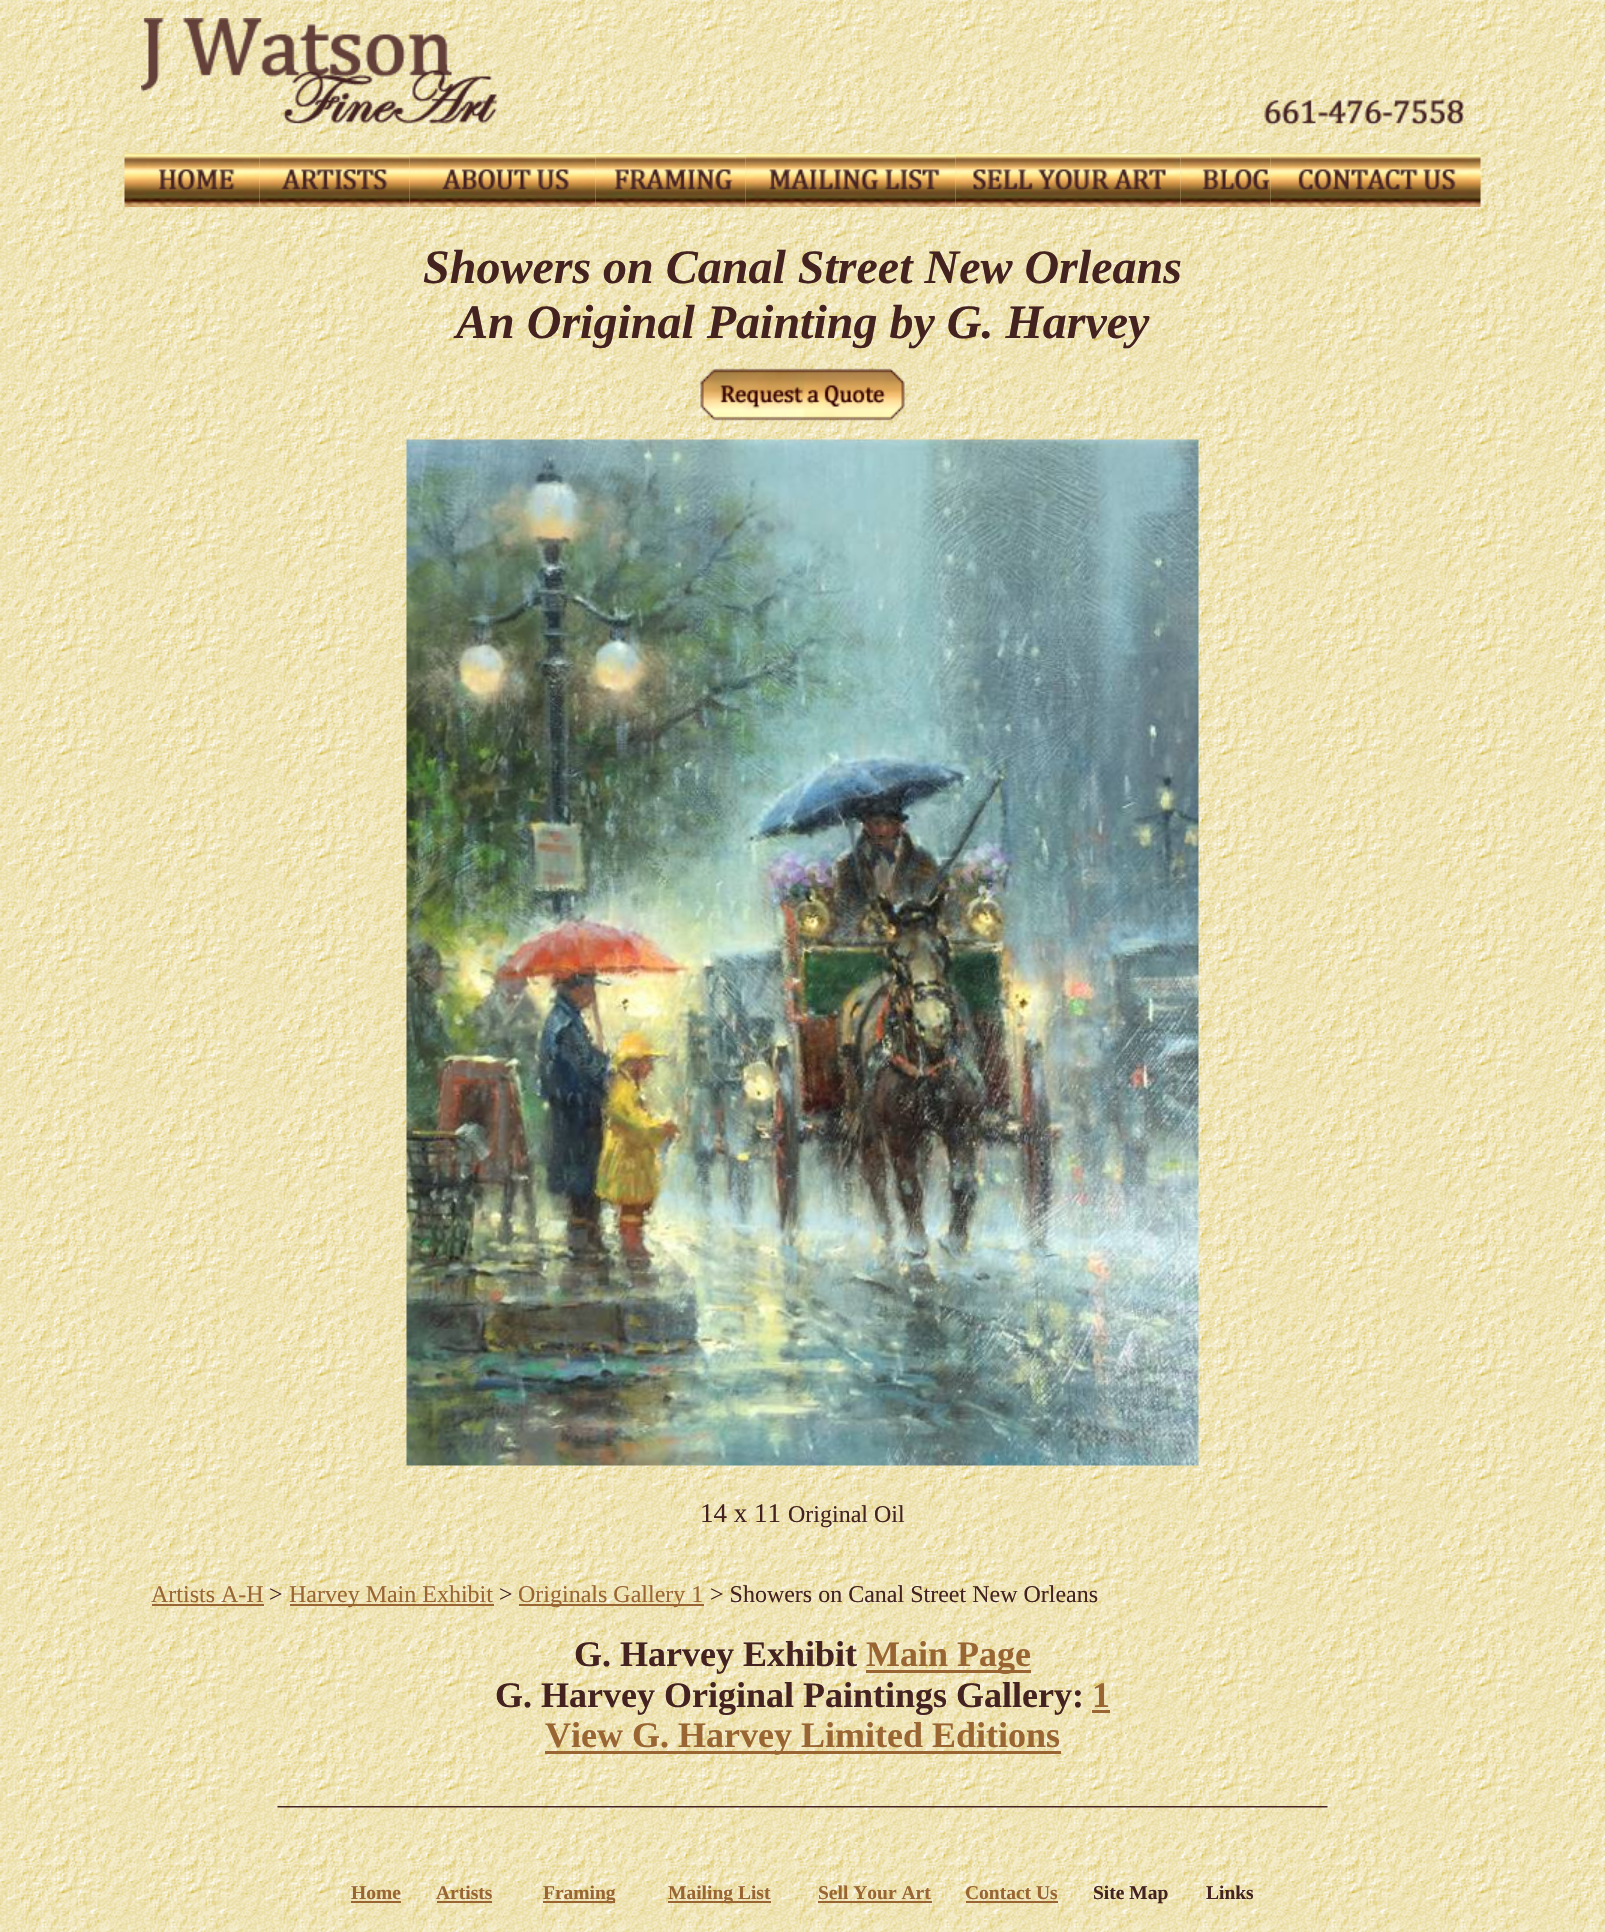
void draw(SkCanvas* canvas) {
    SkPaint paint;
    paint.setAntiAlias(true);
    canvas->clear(0xFFFFFFFF);
    canvas->drawImageRect(SkImages::DeferredFromEncodedData(SkData::MakeFromFileName("img1.png")), SkRect::MakeXYWH(0, 0, 1605, 1932), SkSamplingOptions());
    canvas->drawImageRect(SkImages::DeferredFromEncodedData(SkData::MakeFromFileName("img2.png")), SkRect::MakeXYWH(141, 18, 1323, 107), SkSamplingOptions());
    canvas->drawImageRect(SkImages::DeferredFromEncodedData(SkData::MakeFromFileName("img3.png")), SkRect::MakeXYWH(124, 153, 136, 54), SkSamplingOptions());
    canvas->drawImageRect(SkImages::DeferredFromEncodedData(SkData::MakeFromFileName("img4.png")), SkRect::MakeXYWH(259, 153, 151, 54), SkSamplingOptions());
    canvas->drawImageRect(SkImages::DeferredFromEncodedData(SkData::MakeFromFileName("img5.png")), SkRect::MakeXYWH(409, 153, 187, 54), SkSamplingOptions());
    canvas->drawImageRect(SkImages::DeferredFromEncodedData(SkData::MakeFromFileName("img6.png")), SkRect::MakeXYWH(595, 153, 151, 54), SkSamplingOptions());
    canvas->drawImageRect(SkImages::DeferredFromEncodedData(SkData::MakeFromFileName("img7.png")), SkRect::MakeXYWH(745, 153, 211, 54), SkSamplingOptions());
    canvas->drawImageRect(SkImages::DeferredFromEncodedData(SkData::MakeFromFileName("img8.png")), SkRect::MakeXYWH(955, 153, 226, 54), SkSamplingOptions());
    canvas->drawImageRect(SkImages::DeferredFromEncodedData(SkData::MakeFromFileName("img9.png")), SkRect::MakeXYWH(1180, 153, 91, 54), SkSamplingOptions());
    canvas->drawImageRect(SkImages::DeferredFromEncodedData(SkData::MakeFromFileName("img10.png")), SkRect::MakeXYWH(1270, 153, 211, 54), SkSamplingOptions());
    SkFont font1(fontMgr->matchFamilyStyle("Liberation Serif", SkFontStyle::BoldItalic()), 48);
    font1.setSubpixel(true);
    paint.setColor(0xFF442220);
    canvas->drawString("Showers on Canal Street New Orleans", 423, 283, font1, paint);
    canvas->drawString("An Original Painting by G. Harvey", 456, 338, font1, paint);
    canvas->drawImageRect(SkImages::DeferredFromEncodedData(SkData::MakeFromFileName("img11.png")), SkRect::MakeXYWH(700, 368, 205, 53), SkSamplingOptions());
    canvas->drawImageRect(SkImages::DeferredFromEncodedData(SkData::MakeFromFileName("img12.png")), SkRect::MakeXYWH(406, 439, 793, 1027), SkSamplingOptions());
    SkFont font2(fontMgr->matchFamilyStyle("Liberation Serif", SkFontStyle::Normal()), 27);
    font2.setSubpixel(true);
    canvas->drawString("14 x 11", 700, 1522, font2, paint);
    SkFont font3(fontMgr->matchFamilyStyle("Liberation Serif", SkFontStyle::Normal()), 24);
    font3.setSubpixel(true);
    canvas->drawString("Original Oil", 788, 1522, font3, paint);
    paint.setColor(0xFF996633);
    canvas->drawString("Artists A-H", 151, 1602, font3, paint);
    canvas->drawRect(SkRect::MakeXYWH(152, 1604, 112, 2), paint);
    paint.setColor(0xFF442220);
    canvas->drawString(">", 269, 1602, font3, paint);
    paint.setColor(0xFF996633);
    canvas->drawRect(SkRect::MakeXYWH(290, 1604, 204, 2), paint);
    canvas->drawString("Harvey Main Exhibit", 289, 1602, font3, paint);
    paint.setColor(0xFF442220);
    canvas->drawString(">", 499, 1602, font3, paint);
    paint.setColor(0xFF996633);
    canvas->drawRect(SkRect::MakeXYWH(519, 1604, 185, 2), paint);
    canvas->drawString("Originals Gallery 1", 518, 1602, font3, paint);
    paint.setColor(0xFF442220);
    canvas->drawString("> Showers on Canal Street New Orleans", 710, 1602, font3, paint);
    SkFont font4(fontMgr->matchFamilyStyle("Liberation Serif", SkFontStyle::Bold()), 36);
    font4.setSubpixel(true);
    canvas->drawString("G. Harvey Exhibit", 574, 1666, font4, paint);
    paint.setColor(0xFF996633);
    canvas->drawRect(SkRect::MakeXYWH(866, 1670, 165, 3), paint);
    canvas->drawString("Main Page", 866, 1666, font4, paint);
    paint.setColor(0xFF442220);
    canvas->drawString("G. Harvey Original Paintings Gallery:", 495, 1707, font4, paint);
    paint.setColor(0xFF996633);
    canvas->drawString("1", 1092, 1707, font4, paint);
    canvas->drawRect(SkRect::MakeXYWH(1092, 1710, 18, 3), paint);
    canvas->drawRect(SkRect::MakeXYWH(545, 1751, 516, 3), paint);
    canvas->drawString("View G. Harvey Limited Editions", 545, 1747, font4, paint);
    canvas->drawImageRect(SkImages::DeferredFromEncodedData(SkData::MakeFromFileName("img13.png")), SkRect::MakeXYWH(277, 1806, 1051, 2), SkSamplingOptions());
    SkFont font5(fontMgr->matchFamilyStyle("Liberation Serif", SkFontStyle::Bold()), 19.5f);
    font5.setSubpixel(true);
    canvas->drawString("Home", 351, 1899, font5, paint);
    canvas->drawRect(SkRect::MakeXYWH(351, 1901, 50, 2), paint);
    canvas->drawString("Artists", 436, 1899, font5, paint);
    canvas->drawRect(SkRect::MakeXYWH(437, 1901, 55, 2), paint);
    canvas->drawRect(SkRect::MakeXYWH(543, 1901, 72, 2), paint);
    canvas->drawString("Framing", 543, 1899, font5, paint);
    canvas->drawRect(SkRect::MakeXYWH(668, 1901, 103, 2), paint);
    canvas->drawString("Mailing List", 668, 1899, font5, paint);
    canvas->drawString("Sell Your Art", 818, 1899, font5, paint);
    canvas->drawRect(SkRect::MakeXYWH(818, 1901, 114, 2), paint);
    canvas->drawString("Contact Us", 965, 1899, font5, paint);
    canvas->drawRect(SkRect::MakeXYWH(966, 1901, 92, 2), paint);
    paint.setColor(0xFF442220);
    canvas->drawString("Site Map", 1093, 1899, font5, paint);
    canvas->drawString("Links", 1206, 1899, font5, paint);
}
